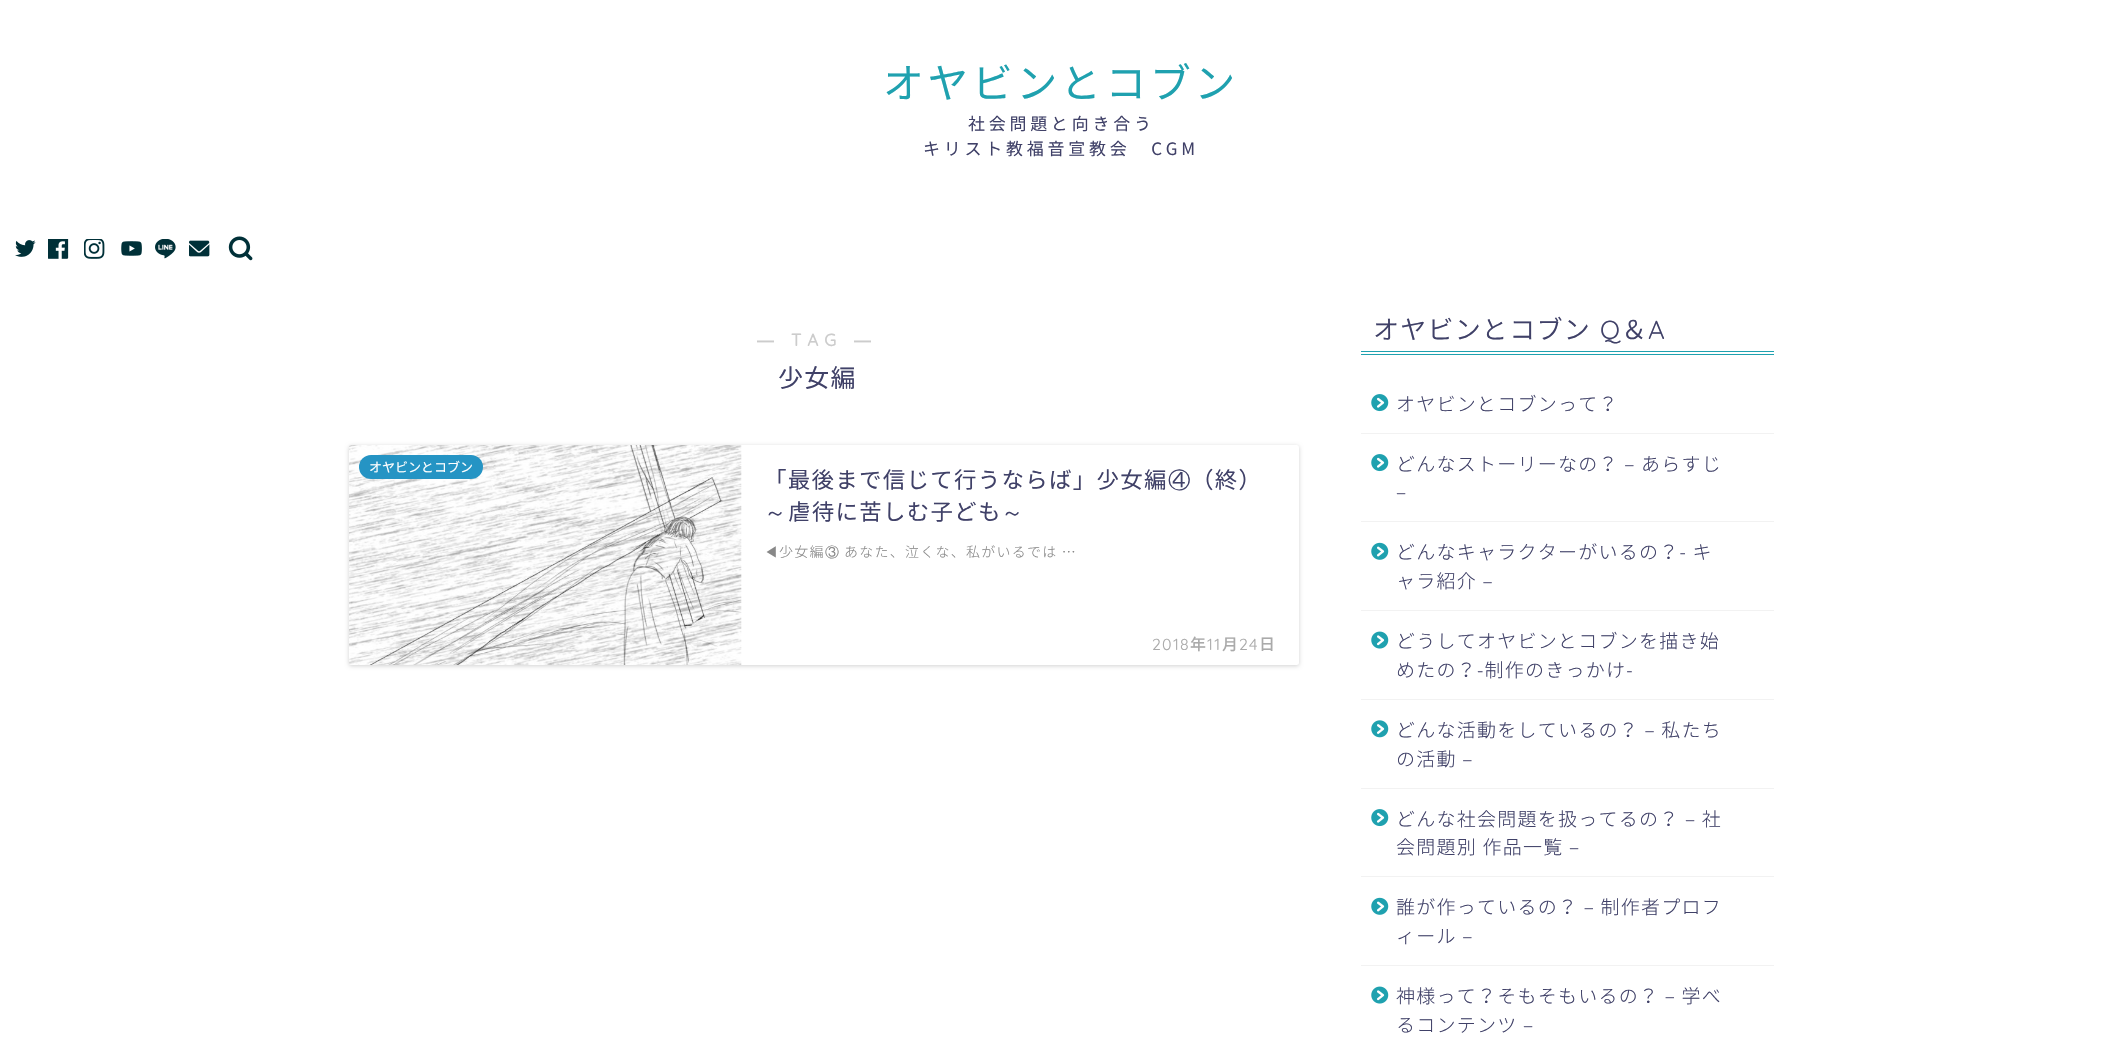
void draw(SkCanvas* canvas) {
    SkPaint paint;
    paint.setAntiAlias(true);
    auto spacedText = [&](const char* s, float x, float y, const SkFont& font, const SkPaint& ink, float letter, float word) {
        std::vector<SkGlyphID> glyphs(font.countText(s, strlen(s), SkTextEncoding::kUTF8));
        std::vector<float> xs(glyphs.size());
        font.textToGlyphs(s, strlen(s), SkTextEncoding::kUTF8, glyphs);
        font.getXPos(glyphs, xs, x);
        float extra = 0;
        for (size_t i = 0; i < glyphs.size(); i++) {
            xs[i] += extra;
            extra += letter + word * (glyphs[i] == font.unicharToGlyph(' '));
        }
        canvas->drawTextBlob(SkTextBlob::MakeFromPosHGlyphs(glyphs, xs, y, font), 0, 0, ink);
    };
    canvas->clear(0xFFFFFFFF);
    SkFont font1(fontMgr->matchFamilyStyle("Noto Sans JP", SkFontStyle::Normal()), 40.75f);
    font1.setSubpixel(true);
    paint.setColor(0xFF1FA1AF);
    spacedText("オヤビンとコブン", 883, 98, font1, paint, 3.75f, 0);
    SkFont font2(fontMgr->matchFamilyStyle("Noto Sans JP", SkFontStyle::Normal()), 17);
    font2.setSubpixel(true);
    paint.setColor(0xFF404168);
    spacedText("社会問題と向き合う", 968, 130, font2, paint, 3.75f, 0);
    spacedText("キリスト教福音宣教会　CGM", 923, 155, font2, paint, 3.75f, 0);
    canvas->drawImageRect(SkImages::DeferredFromEncodedData(SkData::MakeFromFileName("img1.png")), SkRect::MakeXYWH(15, 240, 21, 17), SkSamplingOptions());
    canvas->drawImageRect(SkImages::DeferredFromEncodedData(SkData::MakeFromFileName("img2.png")), SkRect::MakeXYWH(48, 239, 21, 20), SkSamplingOptions());
    canvas->drawImageRect(SkImages::DeferredFromEncodedData(SkData::MakeFromFileName("img3.png")), SkRect::MakeXYWH(84, 239, 21, 20), SkSamplingOptions());
    canvas->drawImageRect(SkImages::DeferredFromEncodedData(SkData::MakeFromFileName("img4.png")), SkRect::MakeXYWH(121, 241, 21, 15), SkSamplingOptions());
    canvas->drawImageRect(SkImages::DeferredFromEncodedData(SkData::MakeFromFileName("img5.png")), SkRect::MakeXYWH(155, 239, 21, 20), SkSamplingOptions());
    canvas->drawImageRect(SkImages::DeferredFromEncodedData(SkData::MakeFromFileName("img6.png")), SkRect::MakeXYWH(189, 240, 21, 17), SkSamplingOptions());
    canvas->drawImageRect(SkImages::DeferredFromEncodedData(SkData::MakeFromFileName("img7.png")), SkRect::MakeXYWH(228, 236, 25, 25), SkSamplingOptions());
    SkFont font3(fontMgr->matchFamilyStyle("Liberation Sans", SkFontStyle::Bold()), 17);
    font3.setSubpixel(true);
    paint.setColor(0xFFCCCCCC);
    spacedText("―", 757, 346, font3, paint, 6, 0);
    SkFont font4(fontMgr->matchFamilyStyle("Quicksand", SkFontStyle::Bold()), 17);
    font4.setSubpixel(true);
    spacedText("TAG", 791, 346, font4, paint, 6, 0);
    spacedText("―", 854, 346, font3, paint, 6, 0);
    SkFont font5(fontMgr->matchFamilyStyle("Noto Sans JP", SkFontStyle::Normal()), 25);
    font5.setSubpixel(true);
    paint.setColor(0xFF404168);
    spacedText("少女編", 778, 387, font5, paint, 1.25f, 0);
    paint.setColor(0x2E000000);
    paint.setMaskFilter(SkMaskFilter::MakeBlur(kNormal_SkBlurStyle, 2));
    canvas->drawRoundRect(SkRect::MakeXYWH(349, 446, 950, 220), 2.5f, 2.5f, paint);
    paint.setMaskFilter(nullptr);
    paint.setColor(0xFFFFFFFF);
    canvas->drawRoundRect(SkRect::MakeXYWH(349, 445, 950, 220), 2.5f, 2.5f, paint);
    canvas->drawImageRect(SkImages::DeferredFromEncodedData(SkData::MakeFromFileName("img8.png")), SkRect::MakeXYWH(349, 445, 393, 220), SkSamplingOptions());
    paint.setColor(0xFF2594C4);
    canvas->drawRoundRect(SkRect::MakeXYWH(359, 455, 124, 24), 12, 12, paint);
    SkFont font6(fontMgr->matchFamilyStyle("Noto Sans JP", SkFontStyle::Normal()), 13);
    font6.setSubpixel(true);
    paint.setColor(0xFFFFFFFF);
    canvas->drawString("オヤビンとコブン", 369, 472, font6, paint);
    SkFont font7(fontMgr->matchFamilyStyle("Noto Sans JP", SkFontStyle::Normal()), 22.5f);
    font7.setSubpixel(true);
    paint.setColor(0xFF404168);
    spacedText("「最後まで信じて行うならば」少女編", 764, 488, font7, paint, 1.25f, 0);
    SkFont font8(fontMgr->matchFamilyStyle("WenQuanYi Zen Hei", SkFontStyle(500, SkFontStyle::kNormal_Width, SkFontStyle::kUpright_Slant)), 22.5f);
    font8.setSubpixel(true);
    spacedText("④", 1168, 488, font8, paint, 1.25f, 0);
    spacedText("（終）", 1191, 488, font7, paint, 1.25f, 0);
    spacedText("～", 764, 520, font8, paint, 1.25f, 0);
    spacedText("虐待に苦しむ子ども", 788, 520, font7, paint, 1.25f, 0);
    spacedText("～", 1001, 520, font8, paint, 1.25f, 0);
    SkFont font9(fontMgr->matchFamilyStyle("WenQuanYi Zen Hei", SkFontStyle(500, SkFontStyle::kNormal_Width, SkFontStyle::kUpright_Slant)), 14);
    font9.setSubpixel(true);
    paint.setColor(0xFF888888);
    spacedText("◀", 764, 557, font9, paint, 1.25f, 0);
    SkFont font10(fontMgr->matchFamilyStyle("Noto Sans JP", SkFontStyle(300, SkFontStyle::kNormal_Width, SkFontStyle::kUpright_Slant)), 14);
    font10.setSubpixel(true);
    spacedText("少女編", 779, 557, font10, paint, 1.25f, 0);
    spacedText("③", 825, 557, font9, paint, 1.25f, 0);
    spacedText("あなた、泣くな、私がいるでは …", 844, 557, font10, paint, 1.25f, 0);
    SkFont font11(fontMgr->matchFamilyStyle("Quicksand", SkFontStyle(300, SkFontStyle::kNormal_Width, SkFontStyle::kUpright_Slant)), 16);
    font11.setSubpixel(true);
    paint.setColor(0xFFAAAAAA);
    spacedText("2018", 1152, 650, font11, paint, 1.25f, 0);
    SkFont font12(fontMgr->matchFamilyStyle("Noto Sans JP", SkFontStyle(500, SkFontStyle::kNormal_Width, SkFontStyle::kUpright_Slant)), 16);
    font12.setSubpixel(true);
    spacedText("年", 1190, 650, font12, paint, 1.25f, 0);
    spacedText("11", 1207, 650, font11, paint, 1.25f, 0);
    spacedText("月", 1222, 650, font12, paint, 1.25f, 0);
    spacedText("24", 1239, 650, font11, paint, 1.25f, 0);
    spacedText("日", 1259, 650, font12, paint, 1.25f, 0);
    paint.setColor(0xFF1FA1AF);
    canvas->drawRect(SkRect::MakeXYWH(1361, 351, 413, 1), paint);
    canvas->drawRect(SkRect::MakeXYWH(1361, 354, 413, 1), paint);
    SkFont font13(fontMgr->matchFamilyStyle("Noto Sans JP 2", SkFontStyle(300, SkFontStyle::kNormal_Width, SkFontStyle::kUpright_Slant)), 26);
    font13.setSubpixel(true);
    paint.setColor(0xFF404168);
    spacedText("オヤビンとコブン", 1373, 339, font13, paint, 1.25f, 0);
    SkFont font14(fontMgr->matchFamilyStyle("Quicksand", SkFontStyle(300, SkFontStyle::kNormal_Width, SkFontStyle::kUpright_Slant)), 26);
    font14.setSubpixel(true);
    spacedText("Q", 1600, 339, font14, paint, 1.25f, 0);
    spacedText("＆", 1621, 339, font13, paint, 1.25f, 0);
    spacedText("A", 1648, 339, font14, paint, 1.25f, 0);
    paint.setColor(0xFFF2F2F2);
    canvas->drawRect(SkRect::MakeXYWH(1361, 433, 413, 1), paint);
    canvas->drawImageRect(SkImages::DeferredFromEncodedData(SkData::MakeFromFileName("img9.png")), SkRect::MakeXYWH(1371, 394, 18, 18), SkSamplingOptions());
    SkFont font15(fontMgr->matchFamilyStyle("Noto Sans JP", SkFontStyle(300, SkFontStyle::kNormal_Width, SkFontStyle::kUpright_Slant)), 19);
    font15.setSubpixel(true);
    paint.setColor(0xFF404168);
    spacedText("オヤビンとコブンって？", 1396, 411, font15, paint, 1.25f, 0);
    paint.setColor(0xFFF2F2F2);
    canvas->drawRect(SkRect::MakeXYWH(1361, 521, 413, 1), paint);
    canvas->drawImageRect(SkImages::DeferredFromEncodedData(SkData::MakeFromFileName("img9.png")), SkRect::MakeXYWH(1371, 454, 18, 18), SkSamplingOptions());
    paint.setColor(0xFF404168);
    spacedText("どんなストーリーなの？ – あらすじ", 1396, 471, font15, paint, 1.25f, 0);
    spacedText("–", 1396, 499, font15, paint, 1.25f, 0);
    paint.setColor(0xFFF2F2F2);
    canvas->drawRect(SkRect::MakeXYWH(1361, 610, 413, 1), paint);
    canvas->drawImageRect(SkImages::DeferredFromEncodedData(SkData::MakeFromFileName("img10.png")), SkRect::MakeXYWH(1371, 542, 18, 18), SkSamplingOptions());
    paint.setColor(0xFF404168);
    spacedText("どんなキャラクターがいるの？- キ", 1396, 559, font15, paint, 1.25f, 0);
    spacedText("ャラ紹介 –", 1396, 588, font15, paint, 1.25f, 0);
    paint.setColor(0xFFF2F2F2);
    canvas->drawRect(SkRect::MakeXYWH(1361, 699, 413, 1), paint);
    canvas->drawImageRect(SkImages::DeferredFromEncodedData(SkData::MakeFromFileName("img11.png")), SkRect::MakeXYWH(1371, 631, 18, 18), SkSamplingOptions());
    paint.setColor(0xFF404168);
    spacedText("どうしてオヤビンとコブンを描き始", 1396, 648, font15, paint, 1.25f, 0);
    spacedText("めたの？-制作のきっかけ-", 1396, 677, font15, paint, 1.25f, 0);
    paint.setColor(0xFFF2F2F2);
    canvas->drawRect(SkRect::MakeXYWH(1361, 788, 413, 1), paint);
    canvas->drawImageRect(SkImages::DeferredFromEncodedData(SkData::MakeFromFileName("img12.png")), SkRect::MakeXYWH(1371, 720, 18, 18), SkSamplingOptions());
    paint.setColor(0xFF404168);
    spacedText("どんな活動をしているの？ – 私たち", 1396, 737, font15, paint, 1.25f, 0);
    spacedText("の活動 –", 1396, 766, font15, paint, 1.25f, 0);
    paint.setColor(0xFFF2F2F2);
    canvas->drawRect(SkRect::MakeXYWH(1361, 876, 413, 1), paint);
    canvas->drawImageRect(SkImages::DeferredFromEncodedData(SkData::MakeFromFileName("img9.png")), SkRect::MakeXYWH(1371, 809, 18, 18), SkSamplingOptions());
    paint.setColor(0xFF404168);
    spacedText("どんな社会問題を扱ってるの？ – 社", 1396, 826, font15, paint, 1.25f, 0);
    spacedText("会問題別 作品一覧 –", 1396, 854, font15, paint, 1.25f, 0);
    paint.setColor(0xFFF2F2F2);
    canvas->drawRect(SkRect::MakeXYWH(1361, 965, 413, 1), paint);
    canvas->drawImageRect(SkImages::DeferredFromEncodedData(SkData::MakeFromFileName("img10.png")), SkRect::MakeXYWH(1371, 897, 18, 18), SkSamplingOptions());
    paint.setColor(0xFF404168);
    spacedText("誰が作っているの？ – 制作者プロフ", 1396, 914, font15, paint, 1.25f, 0);
    spacedText("ィール –", 1396, 943, font15, paint, 1.25f, 0);
    canvas->drawImageRect(SkImages::DeferredFromEncodedData(SkData::MakeFromFileName("img11.png")), SkRect::MakeXYWH(1371, 986, 18, 18), SkSamplingOptions());
    spacedText("神様って？そもそもいるの？ – 学べ", 1396, 1003, font15, paint, 1.25f, 0);
    spacedText("るコンテンツ –", 1396, 1032, font15, paint, 1.25f, 0);
}
